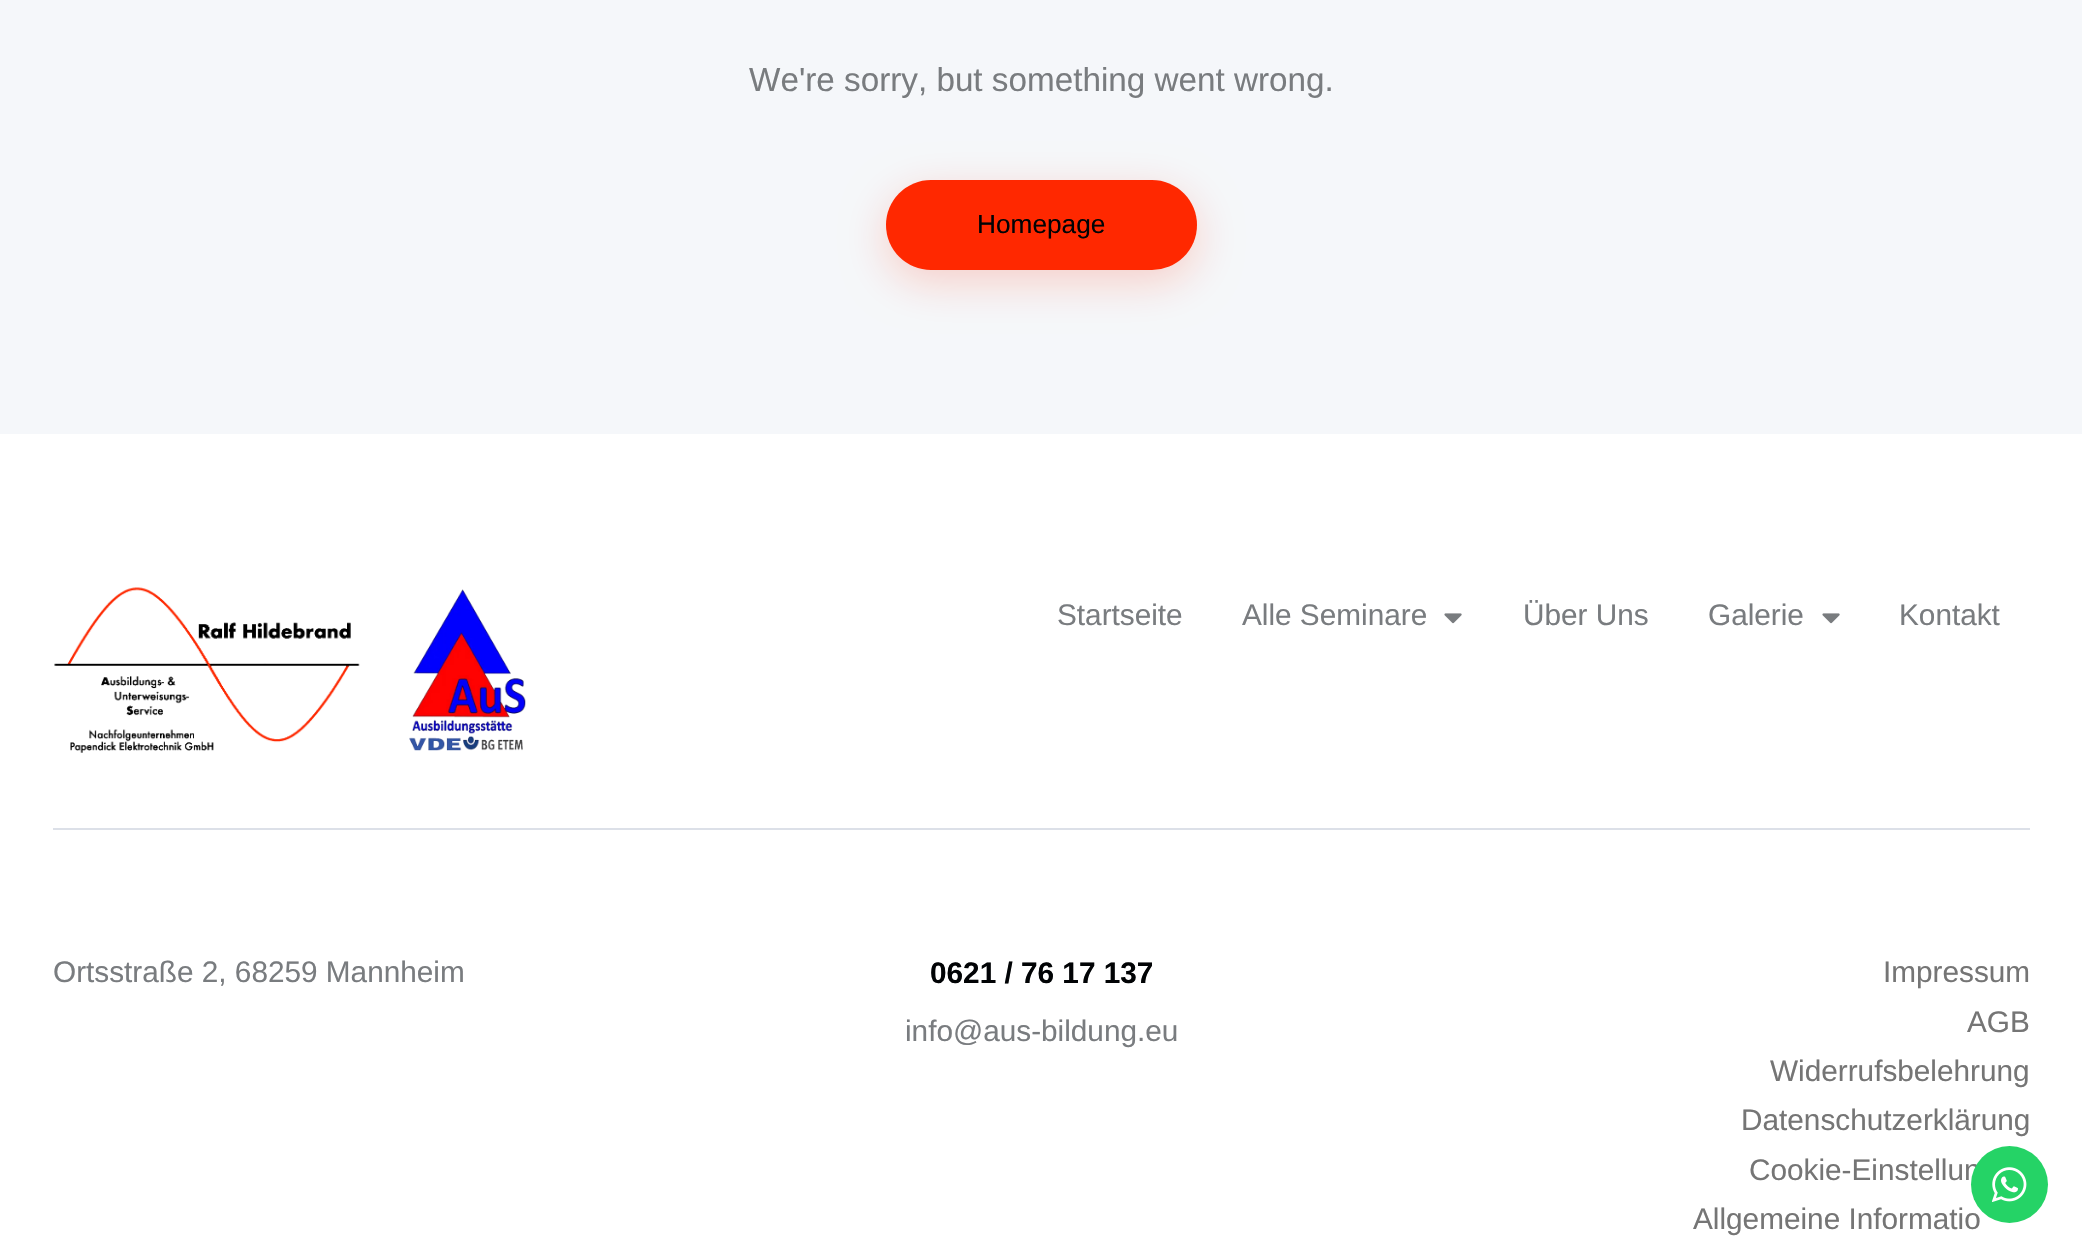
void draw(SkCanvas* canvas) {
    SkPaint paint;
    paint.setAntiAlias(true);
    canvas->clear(0xFFF5F7FA);
    SkFont font1(fontMgr->matchFamilyStyle("Liberation Sans", SkFontStyle::Normal()), 33.25f);
    font1.setSubpixel(true);
    paint.setColor(0xFF797C7F);
    canvas->drawString("We're sorry, but something went wrong.", 749, 91, font1, paint);
    paint.setColor(0x33FF2800);
    paint.setMaskFilter(SkMaskFilter::MakeBlur(kNormal_SkBlurStyle, 22));
    canvas->drawRoundRect(SkRect::MakeXYWH(886, 193, 311, 89), 44.5f, 44.5f, paint);
    paint.setMaskFilter(nullptr);
    paint.setColor(0xFFFF2800);
    canvas->drawRoundRect(SkRect::MakeXYWH(886, 180, 311, 90), 45, 45, paint);
    SkFont font2(fontMgr->matchFamilyStyle("Liberation Sans", SkFontStyle::Normal()), 26.25f);
    font2.setSubpixel(true);
    paint.setColor(0xFF010305);
    canvas->drawString("Homepage", 977, 233, font2, paint);
    paint.setColor(0xFFFFFFFF);
    canvas->drawRect(SkRect::MakeXYWH(0, 434, 2082, 823), paint);
    canvas->drawImageRect(SkImages::DeferredFromEncodedData(SkData::MakeFromFileName("img1.png")), SkRect::MakeXYWH(54, 587, 306, 166), SkSamplingOptions());
    canvas->drawImageRect(SkImages::DeferredFromEncodedData(SkData::MakeFromFileName("img2.png")), SkRect::MakeXYWH(409, 589, 117, 162), SkSamplingOptions());
    SkFont font3(fontMgr->matchFamilyStyle("Liberation Sans", SkFontStyle::Normal()), 29.75f);
    font3.setSubpixel(true);
    paint.setColor(0xFF797C7F);
    canvas->drawString("Startseite", 1057, 625, font3, paint);
    canvas->drawString("Alle Seminare", 1242, 625, font3, paint);
    canvas->drawImageRect(SkImages::DeferredFromEncodedData(SkData::MakeFromFileName("img3.png")), SkRect::MakeXYWH(1444, 613, 18, 11), SkSamplingOptions());
    canvas->drawString("Über Uns", 1523, 625, font3, paint);
    canvas->drawString("Galerie", 1708, 625, font3, paint);
    canvas->drawImageRect(SkImages::DeferredFromEncodedData(SkData::MakeFromFileName("img3.png")), SkRect::MakeXYWH(1822, 613, 18, 11), SkSamplingOptions());
    canvas->drawString("Kontakt", 1899, 625, font3, paint);
    paint.setColor(0xFFDCE0E8);
    canvas->drawRect(SkRect::MakeXYWH(53, 828, 1977, 2), paint);
    paint.setColor(0xFF797C7F);
    canvas->drawString("Ortsstraße 2, 68259 Mannheim", 53, 982, font3, paint);
    SkFont font4(fontMgr->matchFamilyStyle("Liberation Sans", SkFontStyle::Bold()), 29.75f);
    font4.setSubpixel(true);
    paint.setColor(0xFF010305);
    canvas->drawString("0621 / 76 17 137", 930, 983, font4, paint);
    paint.setColor(0xFF797C7F);
    canvas->drawString("info@aus-bildung.eu", 905, 1041, font3, paint);
    paint.setColor(0xFF757575);
    canvas->drawString("Impressum", 1883, 982, font3, paint);
    canvas->drawString("AGB", 1967, 1032, font3, paint);
    canvas->drawString("Widerrufsbelehrung", 1770, 1081, font3, paint);
    canvas->drawString("Datenschutzerklärung", 1741, 1130, font3, paint);
    canvas->drawString("Cookie-Einstellun", 1749, 1180, font3, paint);
    canvas->drawString("Allgemeine Informatio", 1693, 1229, font3, paint);
    paint.setColor(0xFF25D366);
    canvas->drawCircle(2009.5f, 1184.5f, 38.5f, paint);
    canvas->drawImageRect(SkImages::DeferredFromEncodedData(SkData::MakeFromFileName("img4.png")), SkRect::MakeXYWH(1992, 1167, 35, 35), SkSamplingOptions());
}
